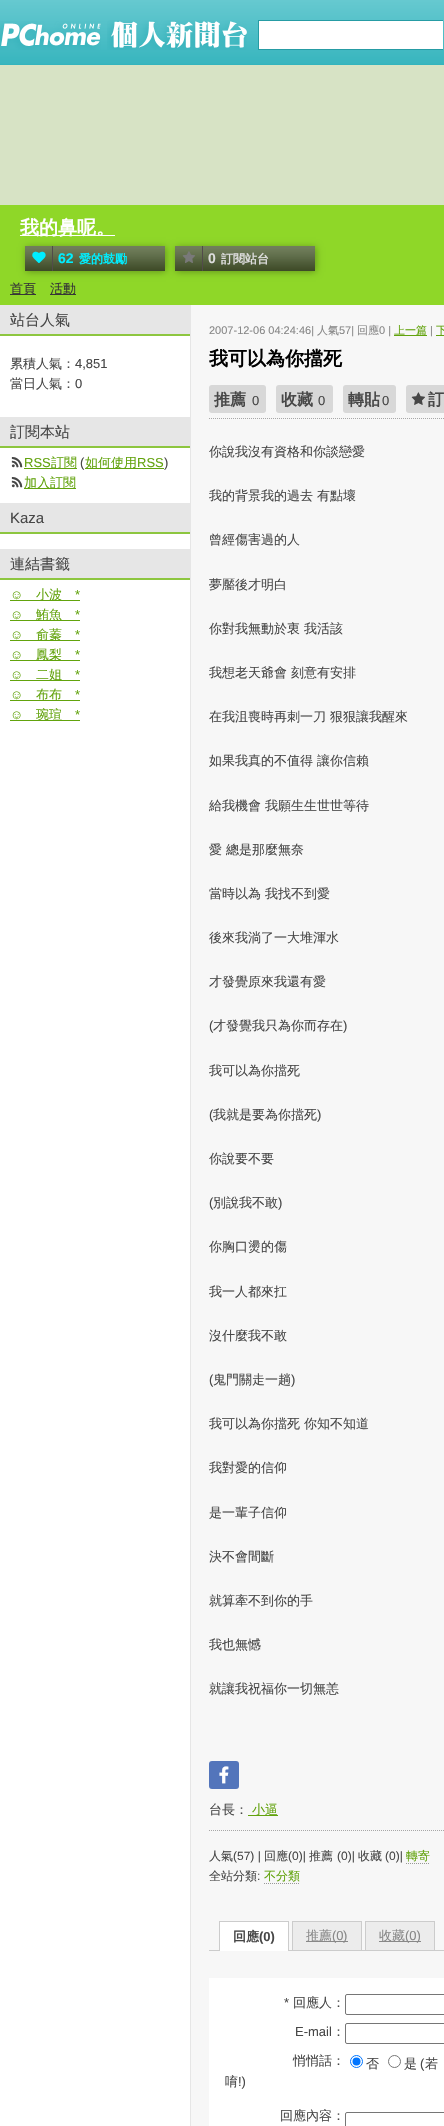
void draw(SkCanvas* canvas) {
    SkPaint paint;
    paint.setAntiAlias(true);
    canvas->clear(0xFFD7E3C5);
    {
        const SkColor colors[] = {0xFF66C9D0, 0xFF37B5BE};
        const float stops[] = {0, 1};
        const SkPoint ends[] = {{222, 0}, {222, 65}};
        paint.setShader(SkGradientShader::MakeLinear(ends, colors, stops, 2, SkTileMode::kClamp));
        paint.setAlpha(255);
    }
    canvas->drawRect(SkRect::MakeXYWH(0, 0, 444, 64), paint);
    paint.setShader(nullptr);
    paint.setColor(0xFF33B4BD);
    canvas->drawRect(SkRect::MakeXYWH(0, 64, 444, 1), paint);
    canvas->drawImageRect(SkImages::DeferredFromEncodedData(SkData::MakeFromFileName("img1.png")), SkRect::MakeXYWH(0, 21, 101, 29), SkSamplingOptions());
    canvas->drawImageRect(SkImages::DeferredFromEncodedData(SkData::MakeFromFileName("img2.png")), SkRect::MakeXYWH(107, 20, 140, 30), SkSamplingOptions());
    paint.setColor(0xFFFFFFFF);
    canvas->drawRect(SkRect::MakeXYWH(259, 21, 184, 28), paint);
    paint.setColor(0xFF269CA4);
    canvas->drawRect(SkRect::MakeXYWH(258, 20, 185, 1), paint);
    canvas->drawRect(SkRect::MakeXYWH(258, 49, 185, 1), paint);
    canvas->drawRect(SkRect::MakeXYWH(258, 20, 1, 30), paint);
    paint.setColor(0xFFFFFFFF);
    canvas->drawRect(SkRect::MakeXYWH(0, 336, 190, 1790), paint);
    paint.setColor(0xFF8FD728);
    canvas->drawRect(SkRect::MakeXYWH(0, 205, 444, 100), paint);
    canvas->save();
    canvas->clipPath(SkPathBuilder(SkPathFillType::kEvenOdd).moveTo(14, 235).lineTo(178, 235).lineTo(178, 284).lineTo(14, 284).close().moveTo(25, 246).lineTo(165, 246).lineTo(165, 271).lineTo(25, 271).close().detach(), true);
    paint.setColor(0x4D000000);
    paint.setMaskFilter(SkMaskFilter::MakeBlur(kNormal_SkBlurStyle, 3.5f));
    canvas->drawRect(SkRect::MakeXYWH(26, 247, 140, 25), paint);
    paint.setMaskFilter(nullptr);
    canvas->restore();
    paint.setColor(0xFFFFFFFF);
    canvas->drawRect(SkRect::MakeXYWH(20, 235, 95, 1), paint);
    SkFont font1(fontMgr->matchFamilyStyle("WenQuanYi Zen Hei", SkFontStyle::Bold()), 19);
    font1.setSubpixel(true);
    canvas->drawString("我的鼻呢。", 20, 234, font1, paint);
    canvas->drawImageRect(SkImages::DeferredFromEncodedData(SkData::MakeFromFileName("img3.png")), SkRect::MakeXYWH(25, 246, 140, 25), SkSamplingOptions());
    paint.setColor(0xFF514B4A);
    canvas->drawRect(SkRect::MakeXYWH(52, 246, 1, 25), paint);
    SkFont font2(fontMgr->matchFamilyStyle("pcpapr", SkFontStyle::Normal()), 15);
    font2.setSubpixel(true);
    paint.setColor(0xFF00EEFF);
    canvas->drawString("#", 32, 263, font2, paint);
    SkFont font3(fontMgr->matchFamilyStyle("Liberation Sans", SkFontStyle::Bold()), 14);
    font3.setSubpixel(true);
    canvas->drawString("62", 58, 263, font3, paint);
    SkFont font4(fontMgr->matchFamilyStyle("WenQuanYi Zen Hei", SkFontStyle::Bold()), 12);
    font4.setSubpixel(true);
    canvas->drawString("愛的鼓勵", 79, 263, font4, paint);
    canvas->save();
    canvas->clipPath(SkPathBuilder(SkPathFillType::kEvenOdd).moveTo(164, 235).lineTo(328, 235).lineTo(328, 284).lineTo(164, 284).close().moveTo(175, 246).lineTo(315, 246).lineTo(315, 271).lineTo(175, 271).close().detach(), true);
    paint.setColor(0x4D000000);
    paint.setMaskFilter(SkMaskFilter::MakeBlur(kNormal_SkBlurStyle, 3.5f));
    canvas->drawRect(SkRect::MakeXYWH(176, 247, 140, 25), paint);
    paint.setMaskFilter(nullptr);
    canvas->restore();
    canvas->drawImageRect(SkImages::DeferredFromEncodedData(SkData::MakeFromFileName("img3.png")), SkRect::MakeXYWH(175, 246, 140, 25), SkSamplingOptions());
    paint.setColor(0xFF514B4A);
    canvas->drawRect(SkRect::MakeXYWH(202, 246, 1, 25), paint);
    paint.setColor(0xFF797979);
    canvas->drawString("$", 182, 263, font2, paint);
    paint.setColor(0xFFDDDDDD);
    canvas->drawString("0", 208, 263, font3, paint);
    canvas->drawString("訂閱站台", 221, 263, font4, paint);
    paint.setColor(0xFF363636);
    canvas->drawRect(SkRect::MakeXYWH(10, 294, 26, 1), paint);
    SkFont font5(fontMgr->matchFamilyStyle("WenQuanYi Zen Hei", SkFontStyle(500, SkFontStyle::kNormal_Width, SkFontStyle::kUpright_Slant)), 13);
    font5.setSubpixel(true);
    canvas->drawString("首頁", 10, 293, font5, paint);
    canvas->drawRect(SkRect::MakeXYWH(50, 294, 26, 1), paint);
    canvas->drawString("活動", 50, 293, font5, paint);
    paint.setColor(0xFFE6E6E6);
    canvas->drawRect(SkRect::MakeXYWH(0, 305, 190, 29), paint);
    paint.setColor(0xFF8DC63F);
    canvas->drawRect(SkRect::MakeXYWH(0, 334, 190, 2), paint);
    SkFont font6(fontMgr->matchFamilyStyle("WenQuanYi Zen Hei", SkFontStyle(500, SkFontStyle::kNormal_Width, SkFontStyle::kUpright_Slant)), 15);
    font6.setSubpixel(true);
    paint.setColor(0xFF474747);
    canvas->drawString("站台人氣", 10, 325, font6, paint);
    canvas->drawString("累積人氣：", 10, 368, font5, paint);
    SkFont font7(fontMgr->matchFamilyStyle("Liberation Sans", SkFontStyle::Normal()), 13);
    font7.setSubpixel(true);
    canvas->drawString("4,851", 75, 368, font7, paint);
    canvas->drawString("當日人氣：", 10, 388, font5, paint);
    canvas->drawString("0", 75, 388, font7, paint);
    paint.setColor(0xFFE6E6E6);
    canvas->drawRect(SkRect::MakeXYWH(0, 417, 190, 29), paint);
    paint.setColor(0xFF8DC63F);
    canvas->drawRect(SkRect::MakeXYWH(0, 446, 190, 2), paint);
    paint.setColor(0xFF474747);
    canvas->drawString("訂閱本站", 10, 437, font6, paint);
    SkFont font8(fontMgr->matchFamilyStyle("pcpapr", SkFontStyle::Normal()), 13);
    font8.setSubpixel(true);
    canvas->drawString(")", 11, 467, font8, paint);
    paint.setColor(0xFF62A30D);
    canvas->drawString("RSS", 24, 467, font7, paint);
    canvas->drawRect(SkRect::MakeXYWH(24, 468, 53, 1), paint);
    canvas->drawString("訂閱", 51, 467, font5, paint);
    paint.setColor(0xFF474747);
    canvas->drawString("(", 80, 467, font7, paint);
    paint.setColor(0xFF62A30D);
    canvas->drawRect(SkRect::MakeXYWH(85, 468, 79, 1), paint);
    canvas->drawString("如何使用", 85, 467, font5, paint);
    canvas->drawString("RSS", 137, 467, font7, paint);
    paint.setColor(0xFF474747);
    canvas->drawString(")", 164, 467, font7, paint);
    canvas->drawString(")", 11, 487, font8, paint);
    paint.setColor(0xFF62A30D);
    canvas->drawRect(SkRect::MakeXYWH(24, 488, 52, 1), paint);
    canvas->drawString("加入訂閱", 24, 487, font5, paint);
    paint.setColor(0xFFE6E6E6);
    canvas->drawRect(SkRect::MakeXYWH(0, 503, 190, 29), paint);
    paint.setColor(0xFF8DC63F);
    canvas->drawRect(SkRect::MakeXYWH(0, 532, 190, 2), paint);
    SkFont font9(fontMgr->matchFamilyStyle("Liberation Sans", SkFontStyle::Normal()), 15);
    font9.setSubpixel(true);
    paint.setColor(0xFF474747);
    canvas->drawString("Kaza", 10, 523, font9, paint);
    paint.setColor(0xFFE6E6E6);
    canvas->drawRect(SkRect::MakeXYWH(0, 549, 190, 29), paint);
    paint.setColor(0xFF8DC63F);
    canvas->drawRect(SkRect::MakeXYWH(0, 578, 190, 2), paint);
    paint.setColor(0xFF474747);
    canvas->drawString("連結書籤", 10, 569, font6, paint);
    paint.setColor(0xFF62A30D);
    canvas->drawString("☺", 10, 599, font7, paint);
    canvas->drawRect(SkRect::MakeXYWH(10, 600, 70, 1), paint);
    canvas->drawString("小波", 36, 599, font5, paint);
    canvas->drawString("*", 75, 599, font7, paint);
    canvas->drawString("☺", 10, 619, font7, paint);
    canvas->drawRect(SkRect::MakeXYWH(10, 620, 70, 1), paint);
    canvas->drawString("鮪魚", 36, 619, font5, paint);
    canvas->drawString("*", 75, 619, font7, paint);
    canvas->drawString("☺", 10, 639, font7, paint);
    canvas->drawRect(SkRect::MakeXYWH(10, 640, 70, 1), paint);
    canvas->drawString("俞蓁", 36, 639, font5, paint);
    canvas->drawString("*", 75, 639, font7, paint);
    canvas->drawString("☺", 10, 659, font7, paint);
    canvas->drawRect(SkRect::MakeXYWH(10, 660, 70, 1), paint);
    canvas->drawString("鳳梨", 36, 659, font5, paint);
    canvas->drawString("*", 75, 659, font7, paint);
    canvas->drawString("☺", 10, 679, font7, paint);
    canvas->drawRect(SkRect::MakeXYWH(10, 680, 70, 1), paint);
    canvas->drawString("二姐", 36, 679, font5, paint);
    canvas->drawString("*", 75, 679, font7, paint);
    canvas->drawString("☺", 10, 699, font7, paint);
    canvas->drawRect(SkRect::MakeXYWH(10, 700, 70, 1), paint);
    canvas->drawString("布布", 36, 699, font5, paint);
    canvas->drawString("*", 75, 699, font7, paint);
    canvas->drawString("☺", 10, 719, font7, paint);
    canvas->drawRect(SkRect::MakeXYWH(10, 720, 70, 1), paint);
    canvas->drawString("琬瑄", 36, 719, font5, paint);
    canvas->drawString("*", 75, 719, font7, paint);
    paint.setColor(0xFFF7F7F7);
    canvas->drawRect(SkRect::MakeXYWH(191, 305, 253, 1821), paint);
    paint.setColor(0xFFE6E6E6);
    canvas->drawRect(SkRect::MakeXYWH(190, 305, 1, 1821), paint);
    SkFont font10(fontMgr->matchFamilyStyle("Liberation Sans", SkFontStyle::Normal()), 11);
    font10.setSubpixel(true);
    paint.setColor(0xFF888888);
    canvas->drawString("2007-12-06 04:24:46|", 209, 334, font10, paint);
    SkFont font11(fontMgr->matchFamilyStyle("WenQuanYi Zen Hei", SkFontStyle(500, SkFontStyle::kNormal_Width, SkFontStyle::kUpright_Slant)), 11);
    font11.setSubpixel(true);
    canvas->drawString("人氣", 317, 334, font11, paint);
    canvas->drawString("57|", 339, 334, font10, paint);
    canvas->drawString("回應", 357, 334, font11, paint);
    canvas->drawString("0 |", 379, 334, font10, paint);
    paint.setColor(0xFF62A30D);
    canvas->drawRect(SkRect::MakeXYWH(394, 335, 33, 1), paint);
    canvas->drawString("上一篇", 394, 334, font11, paint);
    paint.setColor(0xFF888888);
    canvas->drawString("|", 430, 334, font10, paint);
    paint.setColor(0xFF62A30D);
    canvas->drawRect(SkRect::MakeXYWH(436, 335, 8, 1), paint);
    canvas->drawString("下", 436, 334, font11, paint);
    paint.setColor(0xFF000000);
    canvas->drawString("我可以為你擋死", 209, 365, font1, paint);
    paint.setColor(0xFFD8D8D8);
    canvas->drawRoundRect(SkRect::MakeXYWH(209, 385, 57, 28), 3, 3, paint);
    SkFont font12(fontMgr->matchFamilyStyle("WenQuanYi Zen Hei", SkFontStyle::Bold()), 16);
    font12.setSubpixel(true);
    paint.setColor(0xFF474747);
    canvas->drawString("推薦", 214, 405, font12, paint);
    canvas->drawString("0", 252, 405, font7, paint);
    paint.setColor(0xFFD8D8D8);
    canvas->drawRoundRect(SkRect::MakeXYWH(276, 385, 57, 28), 3, 3, paint);
    paint.setColor(0xFF474747);
    canvas->drawString("收藏", 281, 405, font12, paint);
    canvas->drawString("0", 318, 405, font7, paint);
    paint.setColor(0xFFD8D8D8);
    canvas->drawRoundRect(SkRect::MakeXYWH(343, 385, 53, 28), 3, 3, paint);
    paint.setColor(0xFF474747);
    canvas->drawString("轉貼", 348, 405, font12, paint);
    canvas->drawString("0", 382, 405, font7, paint);
    paint.setColor(0xFFD8D8D8);
    canvas->drawRoundRect(SkRect::MakeXYWH(406, 385, 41, 28), 3, 3, paint);
    SkFont font13(fontMgr->matchFamilyStyle("pcpapr", SkFontStyle::Normal()), 16);
    font13.setSubpixel(true);
    paint.setColor(0xFF474747);
    canvas->drawString("$", 411, 405, font13, paint);
    canvas->drawString("訂", 428, 405, font12, paint);
    canvas->drawImageRect(SkImages::DeferredFromEncodedData(SkData::MakeFromFileName("img4.png")), SkRect::MakeXYWH(209, 418, 235, 1), SkSamplingOptions());
    canvas->drawString("你說我沒有資格和你談戀愛", 209, 456, font5, paint);
    canvas->drawString("我的背景我的過去 有點壞", 209, 500, font5, paint);
    canvas->drawString("曾經傷害過的人", 209, 544, font5, paint);
    canvas->drawString("夢靨後才明白", 209, 589, font5, paint);
    canvas->drawString("你對我無動於衷 我活該", 209, 633, font5, paint);
    canvas->drawString("我想老天爺會 刻意有安排", 209, 677, font5, paint);
    canvas->drawString("在我沮喪時再刺一刀 狠狠讓我醒來", 209, 721, font5, paint);
    canvas->drawString("如果我真的不值得 讓你信賴", 209, 765, font5, paint);
    canvas->drawString("給我機會 我願生生世世等待", 209, 810, font5, paint);
    canvas->drawString("愛 總是那麼無奈", 209, 854, font5, paint);
    canvas->drawString("當時以為 我找不到愛", 209, 898, font5, paint);
    canvas->drawString("後來我淌了一大堆渾水", 209, 942, font5, paint);
    canvas->drawString("才發覺原來我還有愛", 209, 986, font5, paint);
    canvas->drawString("(", 209, 1030, font7, paint);
    canvas->drawString("才發覺我只為你而存在", 213, 1030, font5, paint);
    canvas->drawString(")", 343, 1030, font7, paint);
    canvas->drawString("我可以為你擋死", 209, 1075, font5, paint);
    canvas->drawString("(", 209, 1119, font7, paint);
    canvas->drawString("我就是要為你擋死", 213, 1119, font5, paint);
    canvas->drawString(")", 317, 1119, font7, paint);
    canvas->drawString("你說要不要", 209, 1163, font5, paint);
    canvas->drawString("(", 209, 1207, font7, paint);
    canvas->drawString("別說我不敢", 213, 1207, font5, paint);
    canvas->drawString(")", 278, 1207, font7, paint);
    canvas->drawString("你胸口燙的傷", 209, 1251, font5, paint);
    canvas->drawString("我一人都來扛", 209, 1296, font5, paint);
    canvas->drawString("沒什麼我不敢", 209, 1340, font5, paint);
    canvas->drawString("(", 209, 1384, font7, paint);
    canvas->drawString("鬼門關走一趟", 213, 1384, font5, paint);
    canvas->drawString(")", 291, 1384, font7, paint);
    canvas->drawString("我可以為你擋死 你知不知道", 209, 1428, font5, paint);
    canvas->drawString("我對愛的信仰", 209, 1472, font5, paint);
    canvas->drawString("是一輩子信仰", 209, 1517, font5, paint);
    canvas->drawString("決不會間斷", 209, 1561, font5, paint);
    canvas->drawString("就算牽不到你的手", 209, 1605, font5, paint);
    canvas->drawString("我也無憾", 209, 1649, font5, paint);
    canvas->drawString("就讓我祝福你一切無恙", 209, 1693, font5, paint);
    paint.setColor(0xFF5375BB);
    canvas->drawRoundRect(SkRect::MakeXYWH(209, 1761, 30, 28), 3, 3, paint);
    SkFont font14(fontMgr->matchFamilyStyle("pcpapr", SkFontStyle::Normal()), 18);
    font14.setSubpixel(true);
    paint.setColor(0xFFFFFFFF);
    canvas->drawString("%", 216, 1782, font14, paint);
    canvas->drawImageRect(SkImages::DeferredFromEncodedData(SkData::MakeFromFileName("img4.png")), SkRect::MakeXYWH(209, 1830, 235, 1), SkSamplingOptions());
    paint.setColor(0xFF474747);
    canvas->drawString("台長：", 209, 1814, font5, paint);
    paint.setColor(0xFF62A30D);
    canvas->drawRect(SkRect::MakeXYWH(248, 1815, 30, 1), paint);
    canvas->drawString("小逼", 252, 1814, font5, paint);
    SkFont font15(fontMgr->matchFamilyStyle("WenQuanYi Zen Hei", SkFontStyle(500, SkFontStyle::kNormal_Width, SkFontStyle::kUpright_Slant)), 12);
    font15.setSubpixel(true);
    paint.setColor(0xFF474747);
    canvas->drawString("人氣", 209, 1860, font15, paint);
    SkFont font16(fontMgr->matchFamilyStyle("Liberation Sans", SkFontStyle::Normal()), 12);
    font16.setSubpixel(true);
    canvas->drawString("(57) |", 233, 1860, font16, paint);
    canvas->drawString("回應", 264, 1860, font15, paint);
    canvas->drawString("(0)|", 288, 1860, font16, paint);
    canvas->drawString("推薦", 309, 1860, font15, paint);
    canvas->drawString("(0)|", 337, 1860, font16, paint);
    canvas->drawString("收藏", 358, 1860, font15, paint);
    canvas->drawString("(0)|", 385, 1860, font16, paint);
    paint.setColor(0xFF62A30D);
    canvas->drawString("轉寄", 406, 1860, font15, paint);
    paint.setStyle(SkPaint::kStroke_Style);
    paint.setStrokeWidth(1);
    paint.setColor(0xFF999999);
    paint.setPathEffect(SkDashPathEffect::Make({{1, 1}}, 0));
    canvas->drawPath(SkPathBuilder().moveTo(406, 1863.5f).lineTo(430, 1863.5f).detach(), paint);
    paint.setPathEffect(nullptr);
    paint.setStyle(SkPaint::kFill_Style);
    paint.setColor(0xFF474747);
    canvas->drawString("全站分類", 209, 1880, font15, paint);
    canvas->drawString(":", 257, 1880, font16, paint);
    paint.setColor(0xFF62A30D);
    canvas->drawString("不分類", 264, 1880, font15, paint);
    paint.setStyle(SkPaint::kStroke_Style);
    paint.setColor(0xFF999999);
    paint.setPathEffect(SkDashPathEffect::Make({{1, 1}}, 0));
    canvas->drawPath(SkPathBuilder().moveTo(264, 1883.5f).lineTo(300, 1883.5f).detach(), paint);
    paint.setPathEffect(nullptr);
    paint.setStyle(SkPaint::kFill_Style);
    paint.setColor(0xFFCCCCCC);
    canvas->drawRect(SkRect::MakeXYWH(209, 1950, 235, 1), paint);
    paint.setColor(0xFFFFFFFF);
    canvas->drawRect(SkRect::MakeXYWH(220, 1922, 68, 29), paint);
    paint.setColor(0xFFCCCCCC);
    canvas->drawRect(SkRect::MakeXYWH(219, 1921, 70, 1), paint);
    canvas->drawRect(SkRect::MakeXYWH(288, 1921, 1, 30), paint);
    canvas->drawRect(SkRect::MakeXYWH(219, 1921, 1, 30), paint);
    SkFont font17(fontMgr->matchFamilyStyle("WenQuanYi Zen Hei", SkFontStyle::Bold()), 13);
    font17.setSubpixel(true);
    paint.setColor(0xFF474747);
    canvas->drawString("回應", 233, 1941, font17, paint);
    SkFont font18(fontMgr->matchFamilyStyle("Liberation Sans", SkFontStyle::Bold()), 13);
    font18.setSubpixel(true);
    canvas->drawString("(0)", 259, 1941, font18, paint);
    paint.setColor(0xFFECECEC);
    canvas->drawRect(SkRect::MakeXYWH(292.5f, 1921.5f, 69, 29), paint);
    paint.setStyle(SkPaint::kStroke_Style);
    paint.setColor(0xFFCCCCCC);
    canvas->drawRect(SkRect::MakeXYWH(292.5f, 1921.5f, 69, 29), paint);
    paint.setStyle(SkPaint::kFill_Style);
    paint.setColor(0xFF888888);
    canvas->drawRect(SkRect::MakeXYWH(306, 1941, 30, 1), paint);
    canvas->drawString("推薦", 306, 1940, font5, paint);
    canvas->drawString("(0", 332, 1940, font7, paint);
    canvas->drawRect(SkRect::MakeXYWH(336, 1941, 12, 1), paint);
    canvas->drawString(")", 343, 1940, font7, paint);
    paint.setColor(0xFFECECEC);
    canvas->drawRect(SkRect::MakeXYWH(365.5f, 1921.5f, 69, 29), paint);
    paint.setStyle(SkPaint::kStroke_Style);
    paint.setColor(0xFFCCCCCC);
    canvas->drawRect(SkRect::MakeXYWH(365.5f, 1921.5f, 69, 29), paint);
    paint.setStyle(SkPaint::kFill_Style);
    paint.setColor(0xFF888888);
    canvas->drawRect(SkRect::MakeXYWH(379, 1941, 42, 1), paint);
    canvas->drawString("收藏", 379, 1940, font5, paint);
    canvas->drawString("(0)", 405, 1940, font7, paint);
    paint.setColor(0xFFFFFFFF);
    canvas->drawRect(SkRect::MakeXYWH(209, 1978, 235, 148), paint);
    paint.setColor(0xFF474747);
    canvas->drawString("*", 284, 2007, font7, paint);
    canvas->drawString("回應人：", 293, 2007, font5, paint);
    paint.setStyle(SkPaint::kStroke_Style);
    paint.setColor(0xFF767676);
    canvas->drawRoundRect(SkRect::MakeXYWH(345.5f, 1994.5f, 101, 20), 1.5f, 1.5f, paint);
    paint.setStyle(SkPaint::kFill_Style);
    paint.setColor(0xFF474747);
    canvas->drawString("E-mail", 295, 2036, font7, paint);
    canvas->drawString("：", 332, 2036, font5, paint);
    paint.setStyle(SkPaint::kStroke_Style);
    paint.setColor(0xFF767676);
    canvas->drawRoundRect(SkRect::MakeXYWH(345.5f, 2023.5f, 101, 20), 1.5f, 1.5f, paint);
    paint.setStyle(SkPaint::kFill_Style);
    paint.setColor(0xFF474747);
    canvas->drawString("悄悄話：", 293, 2065, font5, paint);
    paint.setStyle(SkPaint::kStroke_Style);
    paint.setColor(0xFF0075FF);
    canvas->drawCircle(356.5f, 2061.5f, 6, paint);
    paint.setStyle(SkPaint::kFill_Style);
    canvas->drawCircle(356.5f, 2061.5f, 4, paint);
    paint.setColor(0xFF474747);
    canvas->drawString("否", 366, 2068, font5, paint);
    paint.setStyle(SkPaint::kStroke_Style);
    paint.setColor(0xFF767676);
    canvas->drawCircle(394.5f, 2061.5f, 6, paint);
    paint.setStyle(SkPaint::kFill_Style);
    paint.setColor(0xFF474747);
    canvas->drawString("是", 404, 2068, font5, paint);
    canvas->drawString("(", 420, 2068, font7, paint);
    canvas->drawString("若", 425, 2068, font5, paint);
    canvas->drawString("唷", 225, 2086, font5, paint);
    canvas->drawString("!)", 238, 2086, font7, paint);
    canvas->drawString("回應內容：", 280, 2120, font5, paint);
    paint.setStyle(SkPaint::kStroke_Style);
    paint.setColor(0xFF767676);
    canvas->drawRoundRect(SkRect::MakeXYWH(345.5f, 2112.5f, 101, 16), 1.5f, 1.5f, paint);
}
